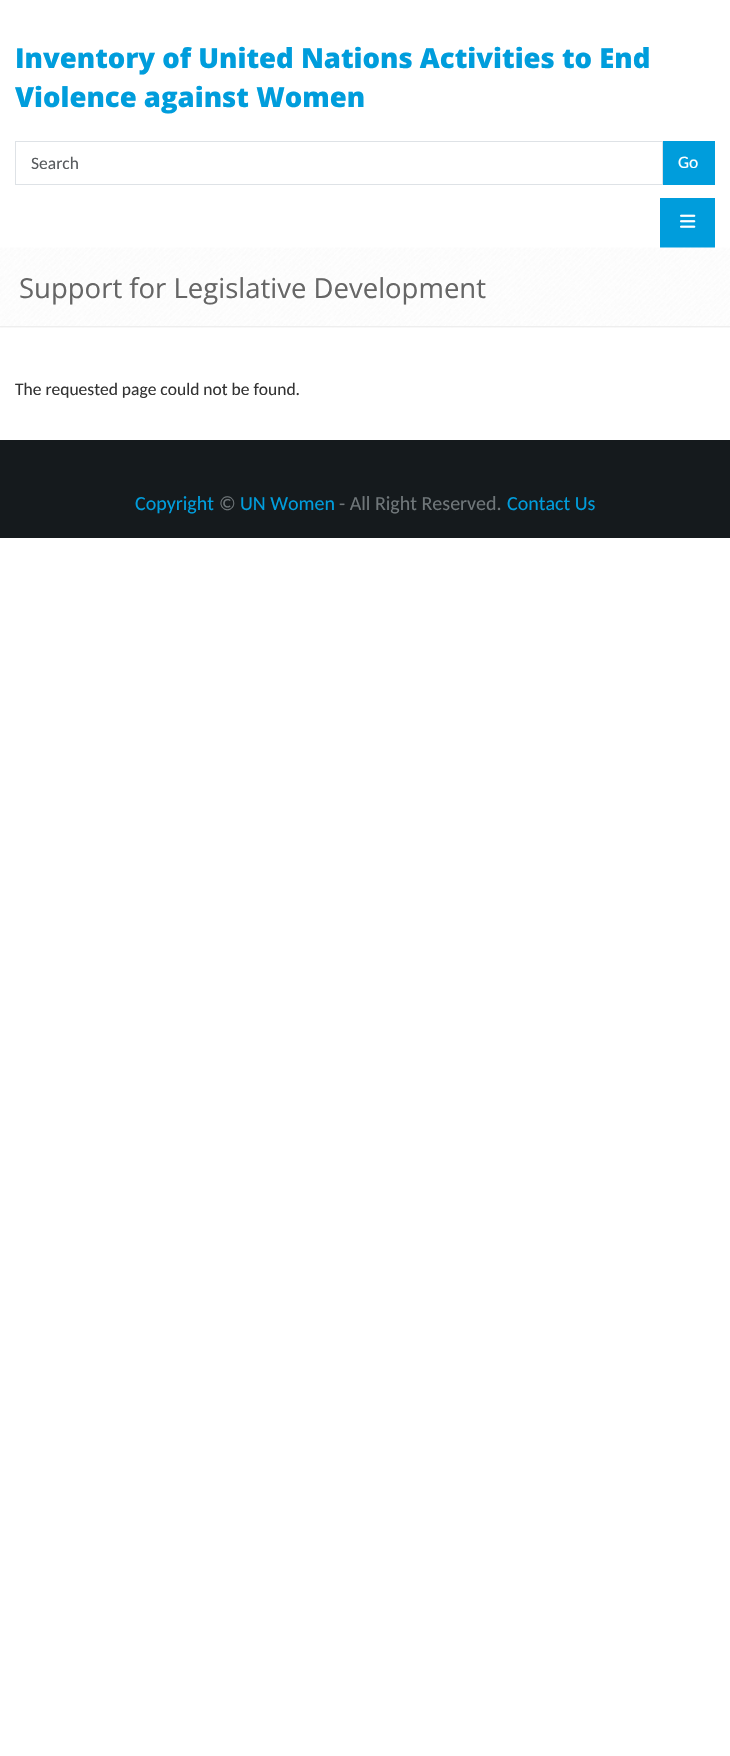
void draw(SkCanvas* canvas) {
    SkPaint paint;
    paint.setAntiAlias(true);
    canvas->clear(0xFFFFFFFF);
    SkFont font1(fontMgr->matchFamilyStyle("Open Sans", SkFontStyle(800, SkFontStyle::kNormal_Width, SkFontStyle::kUpright_Slant)), 27.5f);
    font1.setSubpixel(true);
    paint.setColor(0xFF009DDC);
    canvas->drawString("Inventory of United Nations Activities to End", 15, 68, font1, paint);
    canvas->drawString("Violence against Women", 15, 107, font1, paint);
    paint.setStyle(SkPaint::kStroke_Style);
    paint.setStrokeWidth(1);
    paint.setColor(0xFFDEE2E6);
    canvas->drawRect(SkRect::MakeXYWH(15.5f, 141.5f, 647, 43), paint);
    SkFont font2(fontMgr->matchFamilyStyle("Carlito", SkFontStyle::Normal()), 17.5f);
    font2.setSubpixel(true);
    paint.setStyle(SkPaint::kFill_Style);
    paint.setColor(0xFF595C5F);
    canvas->drawString("Search", 31, 169, font2, paint);
    paint.setColor(0xFF009DDC);
    canvas->drawRect(SkRect::MakeXYWH(663, 141, 52, 44), paint);
    paint.setColor(0xFFFFFFFF);
    canvas->drawString("Go", 678, 168, font2, paint);
    paint.setColor(0xFF009DDC);
    canvas->drawRect(SkRect::MakeXYWH(660, 198, 55, 50), paint);
    canvas->drawImageRect(SkImages::DeferredFromEncodedData(SkData::MakeFromFileName("img1.png")), SkRect::MakeXYWH(680, 214, 16, 14), SkSamplingOptions());
    paint.setColor(0xFFF3F3F3);
    canvas->drawRect(SkRect::MakeXYWH(0, 327, 730, 1), paint);
    canvas->drawImageRect(SkImages::DeferredFromEncodedData(SkData::MakeFromFileName("img2.png")), SkRect::MakeXYWH(0, 247, 730, 81), SkSamplingOptions());
    paint.setColor(0xFFEEEEEE);
    canvas->drawRect(SkRect::MakeXYWH(0, 326, 730, 1), paint);
    SkFont font3(fontMgr->matchFamilyStyle("Open Sans", SkFontStyle::Normal()), 27.5f);
    font3.setSubpixel(true);
    paint.setColor(0xFF666666);
    canvas->drawString("Support for Legislative Development", 19, 298, font3, paint);
    paint.setColor(0xFF333333);
    canvas->drawString("The requested page could not be found.", 15, 395, font2, paint);
    paint.setColor(0xFF151A1D);
    canvas->drawRect(SkRect::MakeXYWH(0, 440, 730, 98), paint);
    SkFont font4(fontMgr->matchFamilyStyle("Carlito", SkFontStyle::Normal()), 20);
    font4.setSubpixel(true);
    paint.setColor(0xFF009DDC);
    canvas->drawString("Copyright", 135, 510, font4, paint);
    paint.setColor(0xFF6F7679);
    canvas->drawString("©", 219, 510, font4, paint);
    paint.setColor(0xFF009DDC);
    canvas->drawString("UN Women", 240, 510, font4, paint);
    paint.setColor(0xFF6F7679);
    canvas->drawString("- All Right Reserved.", 339, 510, font4, paint);
    paint.setColor(0xFF009DDC);
    canvas->drawString("Contact Us", 507, 510, font4, paint);
}
